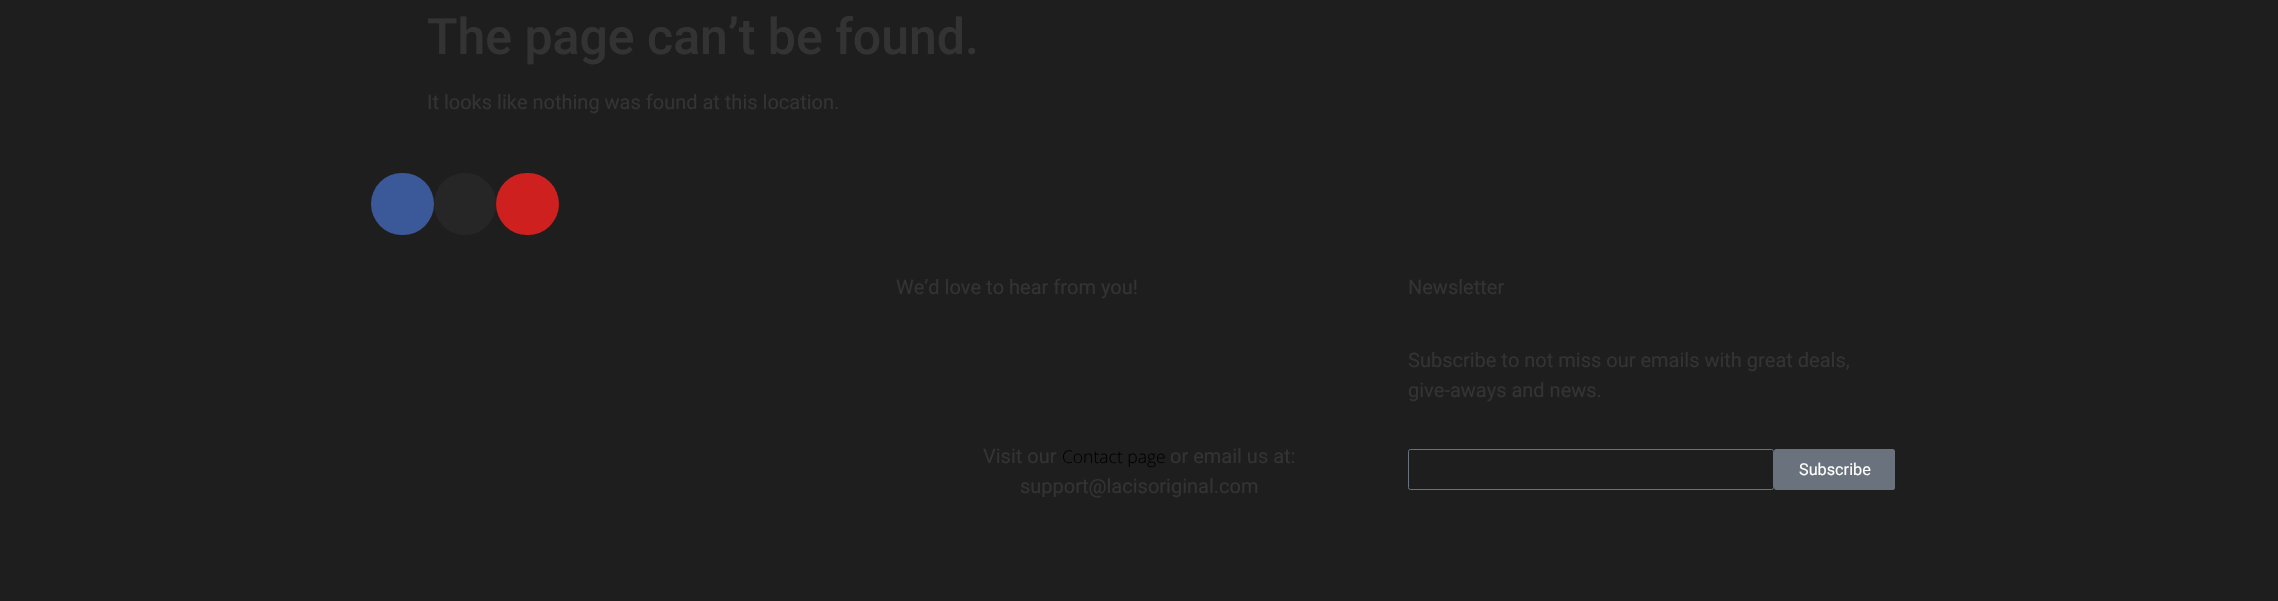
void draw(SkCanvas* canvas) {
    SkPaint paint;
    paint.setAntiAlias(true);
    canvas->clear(0xFF1E1E1E);
    SkFont font1(fontMgr->matchFamilyStyle("Roboto", SkFontStyle(500, SkFontStyle::kNormal_Width, SkFontStyle::kUpright_Slant)), 50);
    font1.setSubpixel(true);
    paint.setColor(0xFF333333);
    canvas->drawString("The page can’t be found.", 427, 54, font1, paint);
    SkFont font2(fontMgr->matchFamilyStyle("Roboto", SkFontStyle::Normal()), 20);
    font2.setSubpixel(true);
    canvas->drawString("It looks like nothing was found at this location.", 427, 109, font2, paint);
    paint.setColor(0xFF3B5998);
    canvas->drawRoundRect(SkRect::MakeXYWH(371, 173, 63, 62), 31, 31, paint);
    paint.setColor(0xFF262626);
    canvas->drawCircle(465, 204, 31, paint);
    paint.setColor(0xFFCD201F);
    canvas->drawRoundRect(SkRect::MakeXYWH(496, 173, 63, 62), 31, 31, paint);
    paint.setColor(0xFF333333);
    canvas->drawString("We’d love to hear from you!", 896, 294, font2, paint);
    canvas->drawString("Visit our", 983, 463, font2, paint);
    SkFont font3(fontMgr->matchFamilyStyle("Open Sans", SkFontStyle(300, SkFontStyle::kNormal_Width, SkFontStyle::kUpright_Slant)), 17.5f);
    font3.setSubpixel(true);
    paint.setColor(0xFF000000);
    canvas->drawString("Contact page", 1062, 463, font3, paint);
    paint.setColor(0xFF333333);
    canvas->drawString("or email us at:", 1170, 463, font2, paint);
    canvas->drawString("support@lacisoriginal.com", 1020, 493, font2, paint);
    canvas->drawString("Newsletter", 1408, 294, font2, paint);
    canvas->drawString("Subscribe to not miss our emails with great deals,", 1408, 367, font2, paint);
    canvas->drawString("give-aways and news.", 1408, 397, font2, paint);
    paint.setStyle(SkPaint::kStroke_Style);
    paint.setStrokeWidth(1);
    paint.setColor(0xFF69727D);
    canvas->drawRoundRect(SkRect::MakeXYWH(1408.5f, 449.5f, 365, 40), 2, 2, paint);
    paint.setStyle(SkPaint::kFill_Style);
    canvas->drawRoundRect(SkRect::MakeXYWH(1774, 449, 121, 41), 2.5f, 2.5f, paint);
    SkFont font4(fontMgr->matchFamilyStyle("Roboto", SkFontStyle::Normal()), 16.25f);
    font4.setSubpixel(true);
    paint.setColor(0xFFFFFFFF);
    canvas->drawString("Subscribe", 1799, 475, font4, paint);
}
